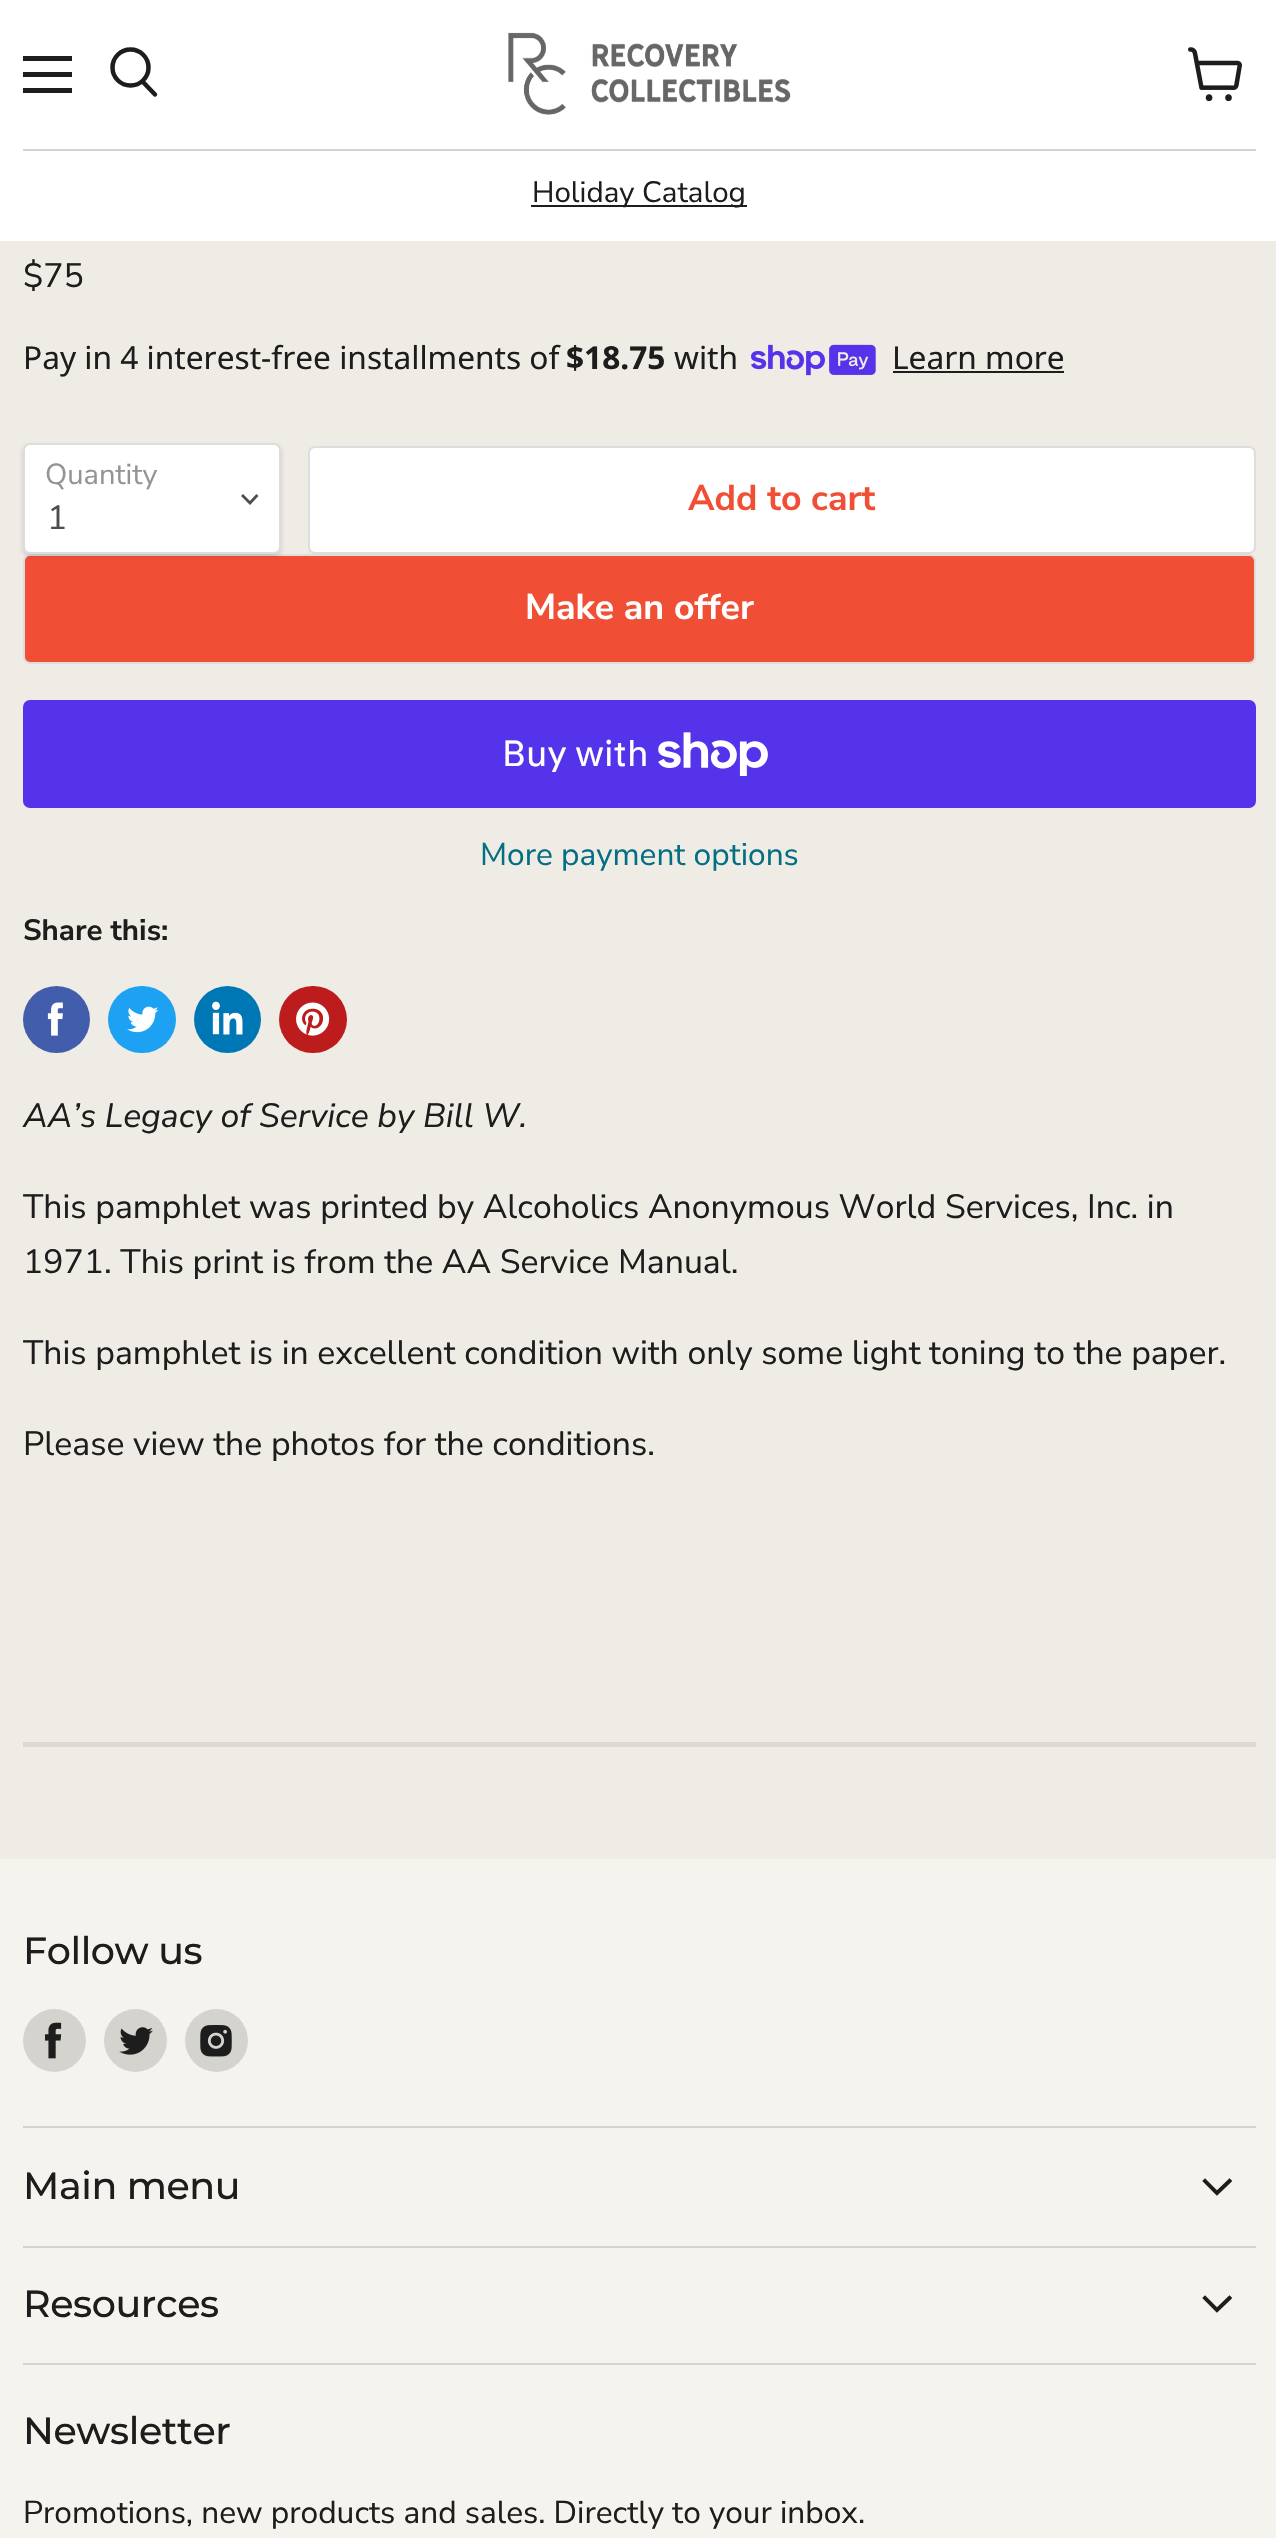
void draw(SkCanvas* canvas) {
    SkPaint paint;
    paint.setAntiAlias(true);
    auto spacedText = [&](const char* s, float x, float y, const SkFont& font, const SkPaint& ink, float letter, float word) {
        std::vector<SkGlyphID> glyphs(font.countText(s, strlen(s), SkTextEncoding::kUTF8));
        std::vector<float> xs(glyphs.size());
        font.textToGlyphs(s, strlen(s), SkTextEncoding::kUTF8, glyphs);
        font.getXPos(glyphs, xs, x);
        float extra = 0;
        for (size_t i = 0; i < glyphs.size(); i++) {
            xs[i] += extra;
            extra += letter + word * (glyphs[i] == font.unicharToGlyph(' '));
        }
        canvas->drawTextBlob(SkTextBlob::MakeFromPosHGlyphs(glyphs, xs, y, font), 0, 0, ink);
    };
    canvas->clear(0xFFEFECE5);
    paint.setColor(0xFFFFFFFF);
    canvas->drawRect(SkRect::MakeXYWH(0, 0, 1276, 241), paint);
    paint.setColor(0xFF1D1D1D);
    canvas->drawRect(SkRect::MakeXYWH(23, 56, 49, 5), paint);
    canvas->drawRect(SkRect::MakeXYWH(23, 72, 49, 5), paint);
    canvas->drawRect(SkRect::MakeXYWH(23, 88, 49, 5), paint);
    paint.setStyle(SkPaint::kStroke_Style);
    paint.setStrokeWidth(4.5f);
    paint.setStrokeCap(SkPaint::kRound_Cap);
    canvas->drawPath(SkPathBuilder().moveTo(155, 94.5f).lineTo(143, 82).detach(), paint);
    paint.setStrokeCap(SkPaint::kButt_Cap);
    canvas->drawCircle(130.5f, 67.5f, 18, paint);
    canvas->drawImageRect(SkImages::DeferredFromEncodedData(SkData::MakeFromFileName("img1.png")), SkRect::MakeXYWH(1188, 47, 54, 54), SkSamplingOptions());
    canvas->drawImageRect(SkImages::DeferredFromEncodedData(SkData::MakeFromFileName("img2.png")), SkRect::MakeXYWH(508, 32, 283, 83), SkSamplingOptions());
    paint.setStyle(SkPaint::kFill_Style);
    paint.setColor(0xFFD2D2D2);
    canvas->drawRect(SkRect::MakeXYWH(23, 149, 1233, 2), paint);
    paint.setColor(0xFF1D1D1D);
    canvas->drawRect(SkRect::MakeXYWH(531, 205, 216, 2), paint);
    SkFont font1(fontMgr->matchFamilyStyle("Nunito Sans", SkFontStyle::Normal()), 29.5f);
    font1.setSubpixel(true);
    canvas->drawString("Holiday Catalog", 532, 202, font1, paint);
    SkFont font2(fontMgr->matchFamilyStyle("Nunito Sans", SkFontStyle::Normal()), 33.75f);
    font2.setSubpixel(true);
    canvas->drawString("$75", 23, 287, font2, paint);
    SkFont font3(fontMgr->matchFamilyStyle("Noto Sans", SkFontStyle::Normal()), 31.65f);
    font3.setSubpixel(true);
    canvas->drawString("Pay in 4 interest-free installments of", 23, 369, font3, paint);
    SkFont font4(fontMgr->matchFamilyStyle("Noto Sans", SkFontStyle::Bold()), 31.65f);
    font4.setSubpixel(true);
    canvas->drawString("$18.75", 566, 369, font4, paint);
    canvas->drawString("with", 674, 369, font3, paint);
    canvas->drawImageRect(SkImages::DeferredFromEncodedData(SkData::MakeFromFileName("img3.png")), SkRect::MakeXYWH(751, 344, 125, 32), SkSamplingOptions());
    canvas->drawString("Learn more", 892, 369, font3, paint);
    canvas->drawRect(SkRect::MakeXYWH(893, 371, 171, 2), paint);
    paint.setColor(0xFFF04F36);
    canvas->drawRoundRect(SkRect::MakeXYWH(24, 555, 1231, 108), 6, 6, paint);
    paint.setStyle(SkPaint::kStroke_Style);
    paint.setStrokeWidth(2);
    paint.setColor(0xFFDDDDDD);
    canvas->drawRoundRect(SkRect::MakeXYWH(24, 555, 1231, 108), 6, 6, paint);
    paint.setStyle(SkPaint::kFill_Style);
    paint.setColor(0x26000000);
    paint.setMaskFilter(SkMaskFilter::MakeBlur(kNormal_SkBlurStyle, 2));
    canvas->drawRoundRect(SkRect::MakeXYWH(23, 446, 258, 110), 7, 7, paint);
    paint.setMaskFilter(nullptr);
    paint.setColor(0xFFFFFFFF);
    canvas->drawRoundRect(SkRect::MakeXYWH(24, 444, 256, 109), 6, 6, paint);
    paint.setStyle(SkPaint::kStroke_Style);
    paint.setColor(0xFFDDDDDD);
    canvas->drawRoundRect(SkRect::MakeXYWH(24, 444, 256, 109), 6, 6, paint);
    SkFont font5(fontMgr->matchFamilyStyle("Nunito Sans", SkFontStyle::Normal()), 29);
    font5.setSubpixel(true);
    paint.setStyle(SkPaint::kFill_Style);
    paint.setColor(0xFF949494);
    canvas->drawString("Quantity", 45, 484, font5, paint);
    paint.setStyle(SkPaint::kStroke_Style);
    paint.setStrokeWidth(2.8f);
    paint.setStrokeCap(SkPaint::kSquare_Cap);
    paint.setColor(0xFF4D4D4D);
    canvas->drawPath(SkPathBuilder().moveTo(250, 503).lineTo(256.5f, 496).moveTo(250, 503).lineTo(243, 496).detach(), paint);
    paint.setStyle(SkPaint::kFill_Style);
    canvas->drawString("1", 47, 529, font2, paint);
    paint.setColor(0xFFFFFFFF);
    canvas->drawRoundRect(SkRect::MakeXYWH(309, 447, 946, 106), 6, 6, paint);
    paint.setStyle(SkPaint::kStroke_Style);
    paint.setStrokeWidth(2);
    paint.setStrokeCap(SkPaint::kButt_Cap);
    paint.setColor(0xFFDDDDDD);
    canvas->drawRoundRect(SkRect::MakeXYWH(309, 447, 946, 106), 6, 6, paint);
    SkFont font6(fontMgr->matchFamilyStyle("Nunito Sans", SkFontStyle::Bold()), 35.75f);
    font6.setSubpixel(true);
    paint.setStyle(SkPaint::kFill_Style);
    paint.setColor(0xFFF04F36);
    canvas->drawString("Add to cart", 688, 510, font6, paint);
    paint.setColor(0xFFFFFFFF);
    canvas->drawString("Make an offer", 525, 619, font6, paint);
    paint.setColor(0xFF5433EB);
    canvas->drawRoundRect(SkRect::MakeXYWH(23, 700, 1233, 108), 7, 7, paint);
    SkFont font7(fontMgr->matchFamilyStyle("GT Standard", SkFontStyle::Normal()), 36);
    font7.setSubpixel(true);
    paint.setColor(0xFFFFFFFF);
    canvas->drawString("Buy with", 502, 766, font7, paint);
    canvas->drawImageRect(SkImages::DeferredFromEncodedData(SkData::MakeFromFileName("img4.png")), SkRect::MakeXYWH(658, 732, 110, 44), SkSamplingOptions());
    SkFont font8(fontMgr->matchFamilyStyle("Nunito Sans", SkFontStyle::Normal()), 31.65f);
    font8.setSubpixel(true);
    paint.setColor(0xFF046E82);
    canvas->drawString("More payment options", 480, 865, font8, paint);
    SkFont font9(fontMgr->matchFamilyStyle("Nunito Sans", SkFontStyle::Bold()), 29.5f);
    font9.setSubpixel(true);
    paint.setColor(0xFF1D1D1D);
    canvas->drawString("Share this:", 23, 940, font9, paint);
    paint.setColor(0xFF425DAB);
    canvas->drawCircle(56.5f, 1019.5f, 33.5f, paint);
    canvas->drawImageRect(SkImages::DeferredFromEncodedData(SkData::MakeFromFileName("img5.png")), SkRect::MakeXYWH(47, 1002, 16, 34), SkSamplingOptions());
    paint.setColor(0xFF1DA1F2);
    canvas->drawRoundRect(SkRect::MakeXYWH(108, 986, 68, 67), 33.5f, 33.5f, paint);
    canvas->drawImageRect(SkImages::DeferredFromEncodedData(SkData::MakeFromFileName("img6.png")), SkRect::MakeXYWH(127, 1006, 32, 27), SkSamplingOptions());
    paint.setColor(0xFF0077B5);
    canvas->drawCircle(227.5f, 1019.5f, 33.5f, paint);
    canvas->drawImageRect(SkImages::DeferredFromEncodedData(SkData::MakeFromFileName("img7.png")), SkRect::MakeXYWH(212, 1001, 31, 34), SkSamplingOptions());
    paint.setColor(0xFFBD1C1C);
    canvas->drawRoundRect(SkRect::MakeXYWH(279, 986, 68, 67), 33.5f, 33.5f, paint);
    canvas->drawImageRect(SkImages::DeferredFromEncodedData(SkData::MakeFromFileName("img8.png")), SkRect::MakeXYWH(296, 1002, 34, 34), SkSamplingOptions());
    SkFont font10(fontMgr->matchFamilyStyle("Nunito Sans", SkFontStyle::Italic()), 33.75f);
    font10.setSubpixel(true);
    paint.setColor(0xFF1D1D1D);
    canvas->drawString("AA’s Legacy of Service by Bill W.", 23, 1127, font10, paint);
    canvas->drawString("This pamphlet was printed by Alcoholics Anonymous World Services, Inc. in", 23, 1218, font2, paint);
    canvas->drawString("1971. This print is from the AA Service Manual.", 23, 1273, font2, paint);
    canvas->drawString("This pamphlet is in excellent condition with only some light toning to the paper.", 23, 1364, font2, paint);
    canvas->drawString("Please view the photos for the conditions.", 23, 1455, font2, paint);
    paint.setColor(0x29787673);
    canvas->drawRect(SkRect::MakeXYWH(23, 1742, 1233, 5), paint);
    paint.setColor(0xFFF5F3ED);
    canvas->drawRect(SkRect::MakeXYWH(0, 1859, 1276, 679), paint);
    paint.setColor(0xFFD5D3CE);
    canvas->drawRect(SkRect::MakeXYWH(23, 2126, 1233, 2), paint);
    SkFont font11(fontMgr->matchFamilyStyle("Montserrat", SkFontStyle(500, SkFontStyle::kNormal_Width, SkFontStyle::kUpright_Slant)), 38);
    font11.setSubpixel(true);
    paint.setColor(0xFF1D1D1D);
    spacedText("Follow us", 23, 1964, font11, paint, -0.4f, 0);
    paint.setColor(0xFFD5D3CE);
    canvas->drawCircle(54.5f, 2040.5f, 31.5f, paint);
    canvas->drawImageRect(SkImages::DeferredFromEncodedData(SkData::MakeFromFileName("img9.png")), SkRect::MakeXYWH(45, 2022, 17, 37), SkSamplingOptions());
    canvas->drawCircle(135.5f, 2040.5f, 31.5f, paint);
    canvas->drawImageRect(SkImages::DeferredFromEncodedData(SkData::MakeFromFileName("img10.png")), SkRect::MakeXYWH(119, 2027, 34, 28), SkSamplingOptions());
    canvas->drawCircle(216.5f, 2040.5f, 31.5f, paint);
    canvas->drawImageRect(SkImages::DeferredFromEncodedData(SkData::MakeFromFileName("img11.png")), SkRect::MakeXYWH(200, 2025, 32, 32), SkSamplingOptions());
    canvas->drawRect(SkRect::MakeXYWH(23, 2246, 1233, 2), paint);
    paint.setColor(0xFF1D1D1D);
    spacedText("Main menu", 23, 2199, font11, paint, -0.4f, 0);
    paint.setStyle(SkPaint::kStroke_Style);
    paint.setStrokeWidth(3.9f);
    paint.setStrokeCap(SkPaint::kSquare_Cap);
    canvas->drawPath(SkPathBuilder().moveTo(1217, 2193).lineTo(1229.5f, 2181).moveTo(1217, 2193).lineTo(1205, 2181).detach(), paint);
    paint.setStyle(SkPaint::kFill_Style);
    paint.setColor(0xFFD5D3CE);
    canvas->drawRect(SkRect::MakeXYWH(23, 2363, 1233, 2), paint);
    paint.setColor(0xFF1D1D1D);
    spacedText("Resources", 23, 2317, font11, paint, -0.4f, 0);
    paint.setStyle(SkPaint::kStroke_Style);
    canvas->drawPath(SkPathBuilder().moveTo(1217, 2310).lineTo(1229.5f, 2298).moveTo(1217, 2310).lineTo(1205, 2298).detach(), paint);
    paint.setStyle(SkPaint::kFill_Style);
    spacedText("Newsletter", 23, 2444, font11, paint, -0.4f, 0);
    canvas->drawString("Promotions, new products and sales. Directly to your inbox.", 23, 2523, font8, paint);
}
